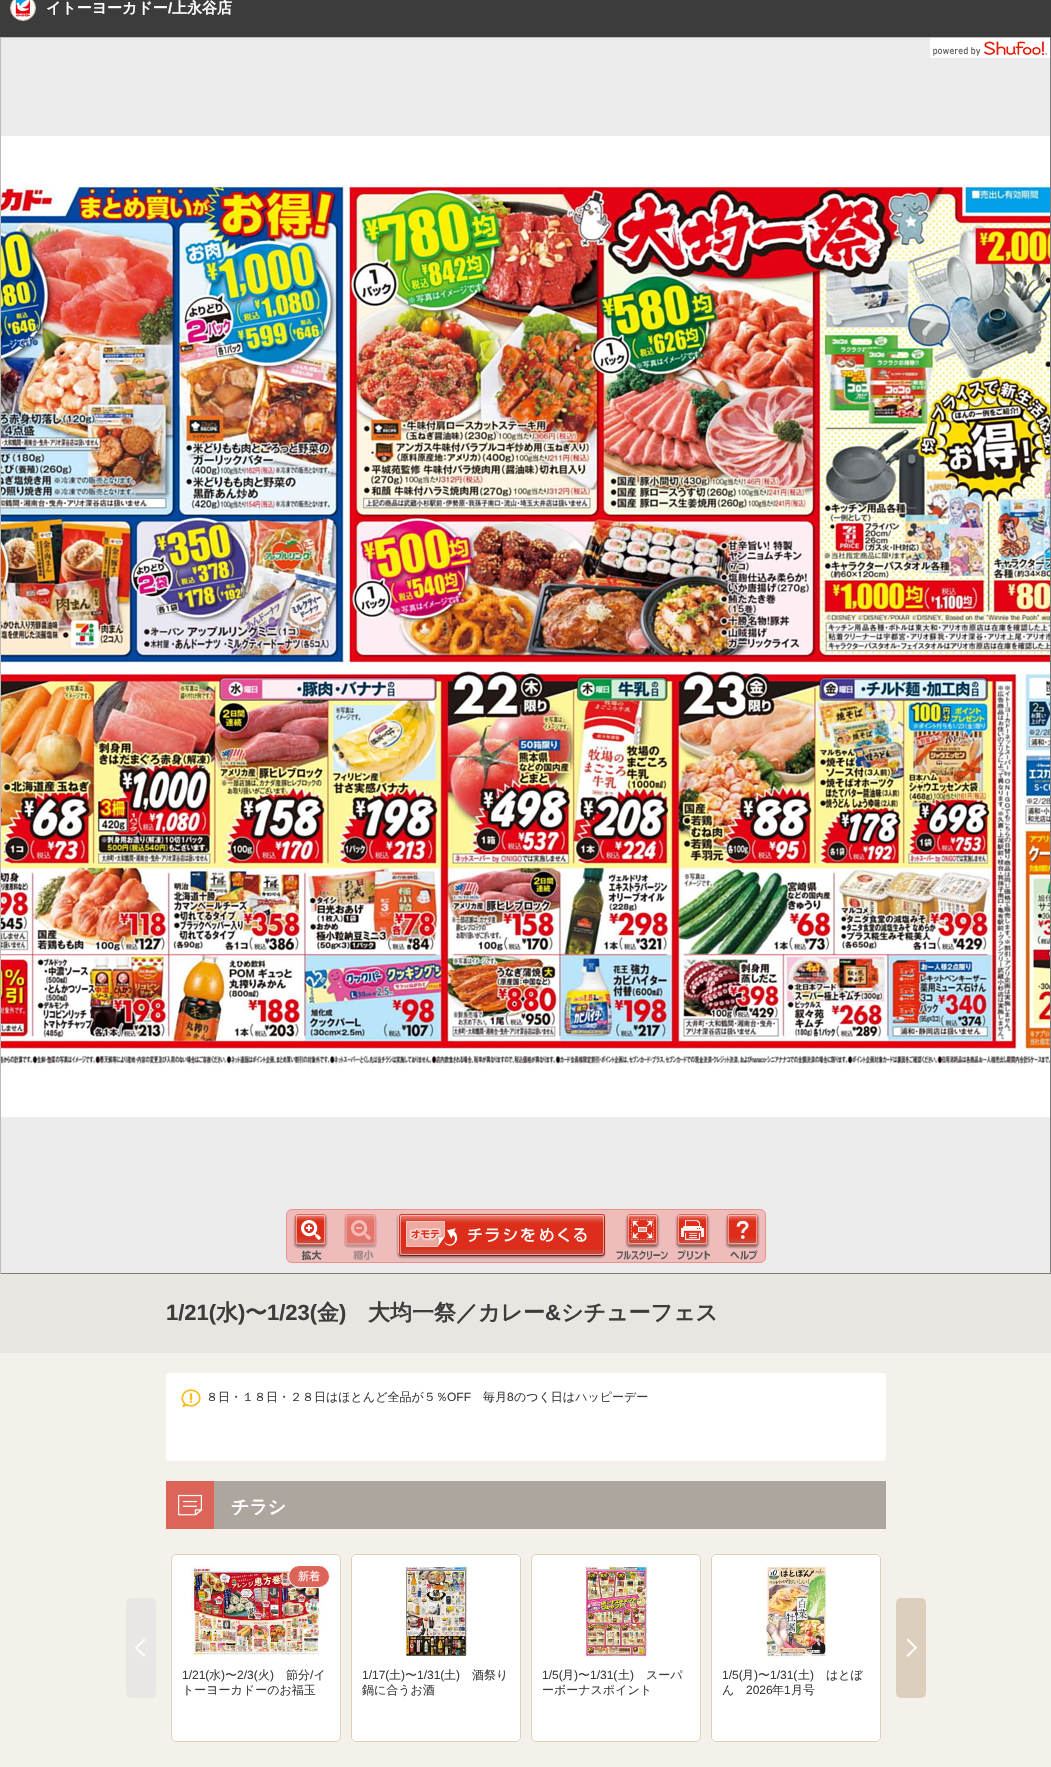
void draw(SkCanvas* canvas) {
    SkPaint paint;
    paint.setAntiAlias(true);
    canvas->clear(0xFFF4F0EA);
    paint.setColor(0xFF3C3C3C);
    canvas->drawRect(SkRect::MakeXYWH(0, 0, 1051, 37), paint);
    paint.setStyle(SkPaint::kStroke_Style);
    paint.setStrokeWidth(1);
    paint.setColor(0xFFDDD0BF);
    canvas->drawCircle(23, 8, 12.5f, paint);
    canvas->drawImageRect(SkImages::DeferredFromEncodedData(SkData::MakeFromFileName("img1.png")), SkRect::MakeXYWH(11, 0, 24, 20), SkSamplingOptions());
    SkFont font1(fontMgr->matchFamilyStyle("WenQuanYi Zen Hei", SkFontStyle::Bold()), 15);
    font1.setSubpixel(true);
    paint.setStyle(SkPaint::kFill_Style);
    paint.setColor(0xFFFFFFFF);
    canvas->drawString("イトーヨーカドー", 46, 13, font1, paint);
    SkFont font2(fontMgr->matchFamilyStyle("Liberation Sans", SkFontStyle::Bold()), 15);
    font2.setSubpixel(true);
    canvas->drawString("/", 168, 13, font2, paint);
    canvas->drawString("上永谷店", 172, 13, font1, paint);
    paint.setColor(0xFFEBEBEB);
    canvas->drawRect(SkRect::MakeXYWH(1, 38, 1049, 1235), paint);
    paint.setColor(0xFFBBBBBB);
    canvas->drawRect(SkRect::MakeXYWH(0, 37, 1051, 1), paint);
    paint.setColor(0xFF7D7D7D);
    canvas->drawRect(SkRect::MakeXYWH(1050, 37, 1, 1237), paint);
    canvas->drawRect(SkRect::MakeXYWH(0, 1273, 1051, 1), paint);
    paint.setColor(0xFFBBBBBB);
    canvas->drawRect(SkRect::MakeXYWH(0, 37, 1, 1237), paint);
    canvas->drawImageRect(SkImages::DeferredFromEncodedData(SkData::MakeFromFileName("img2.png")), SkRect::MakeXYWH(930, 38, 120, 20), SkSamplingOptions());
    canvas->drawImageRect(SkImages::DeferredFromEncodedData(SkData::MakeFromFileName("img3.png")), SkRect::MakeXYWH(1, 136, 349, 512), SkSamplingOptions());
    canvas->drawImageRect(SkImages::DeferredFromEncodedData(SkData::MakeFromFileName("img4.png")), SkRect::MakeXYWH(350, 136, 512, 512), SkSamplingOptions());
    canvas->drawImageRect(SkImages::DeferredFromEncodedData(SkData::MakeFromFileName("img5.png")), SkRect::MakeXYWH(862, 136, 188, 512), SkSamplingOptions());
    canvas->drawImageRect(SkImages::DeferredFromEncodedData(SkData::MakeFromFileName("img6.png")), SkRect::MakeXYWH(1, 648, 349, 469), SkSamplingOptions());
    canvas->drawImageRect(SkImages::DeferredFromEncodedData(SkData::MakeFromFileName("img7.png")), SkRect::MakeXYWH(350, 648, 512, 469), SkSamplingOptions());
    canvas->drawImageRect(SkImages::DeferredFromEncodedData(SkData::MakeFromFileName("img8.png")), SkRect::MakeXYWH(862, 648, 188, 469), SkSamplingOptions());
    paint.setColor(0xFFEFBCBC);
    canvas->drawRoundRect(SkRect::MakeXYWH(286, 1209, 480, 54), 6, 6, paint);
    paint.setStyle(SkPaint::kStroke_Style);
    paint.setColor(0x4DDC2E1A);
    canvas->drawRoundRect(SkRect::MakeXYWH(286.5f, 1209.5f, 479, 53), 5.5f, 5.5f, paint);
    paint.setStyle(SkPaint::kFill_Style);
    paint.setColor(0xFFDC2E1A);
    canvas->drawRoundRect(SkRect::MakeXYWH(296, 1215, 29, 29), 2, 2, paint);
    paint.setStyle(SkPaint::kStroke_Style);
    paint.setColor(0xA6DC2E1A);
    canvas->drawRoundRect(SkRect::MakeXYWH(295.5f, 1214.5f, 30, 30), 2.5f, 2.5f, paint);
    canvas->drawImageRect(SkImages::DeferredFromEncodedData(SkData::MakeFromFileName("img9.png")), SkRect::MakeXYWH(293, 1215, 35, 34), SkSamplingOptions());
    canvas->drawImageRect(SkImages::DeferredFromEncodedData(SkData::MakeFromFileName("img10.png")), SkRect::MakeXYWH(293, 1216, 35, 33), SkSamplingOptions());
    canvas->drawImageRect(SkImages::DeferredFromEncodedData(SkData::MakeFromFileName("img11.png")), SkRect::MakeXYWH(301, 1250, 21, 10), SkSamplingOptions());
    paint.setStyle(SkPaint::kFill_Style);
    paint.setColor(0xFFE6756B);
    canvas->drawRoundRect(SkRect::MakeXYWH(346, 1215, 29, 29), 2, 2, paint);
    paint.setStyle(SkPaint::kStroke_Style);
    paint.setColor(0xA6E6756B);
    canvas->drawRoundRect(SkRect::MakeXYWH(345.5f, 1214.5f, 30, 30), 2.5f, 2.5f, paint);
    canvas->drawImageRect(SkImages::DeferredFromEncodedData(SkData::MakeFromFileName("img12.png")), SkRect::MakeXYWH(344, 1215, 33, 33), SkSamplingOptions());
    canvas->drawImageRect(SkImages::DeferredFromEncodedData(SkData::MakeFromFileName("img13.png")), SkRect::MakeXYWH(344, 1217, 33, 31), SkSamplingOptions());
    canvas->drawImageRect(SkImages::DeferredFromEncodedData(SkData::MakeFromFileName("img14.png")), SkRect::MakeXYWH(353, 1250, 21, 10), SkSamplingOptions());
    paint.setStyle(SkPaint::kFill_Style);
    paint.setColor(0xFFDC2E1A);
    canvas->drawRoundRect(SkRect::MakeXYWH(399, 1214, 206, 42), 3, 3, paint);
    canvas->drawImageRect(SkImages::DeferredFromEncodedData(SkData::MakeFromFileName("img15.png")), SkRect::MakeXYWH(400, 1215, 204, 40), SkSamplingOptions());
    canvas->drawImageRect(SkImages::DeferredFromEncodedData(SkData::MakeFromFileName("img16.png")), SkRect::MakeXYWH(396, 1215, 210, 44), SkSamplingOptions());
    canvas->drawImageRect(SkImages::DeferredFromEncodedData(SkData::MakeFromFileName("img17.png")), SkRect::MakeXYWH(396, 1215, 210, 44), SkSamplingOptions());
    canvas->drawRoundRect(SkRect::MakeXYWH(628, 1215, 29, 29), 2, 2, paint);
    paint.setStyle(SkPaint::kStroke_Style);
    paint.setColor(0xA6DC2E1A);
    canvas->drawRoundRect(SkRect::MakeXYWH(627.5f, 1214.5f, 30, 30), 2.5f, 2.5f, paint);
    canvas->drawImageRect(SkImages::DeferredFromEncodedData(SkData::MakeFromFileName("img18.png")), SkRect::MakeXYWH(625, 1215, 35, 34), SkSamplingOptions());
    canvas->drawImageRect(SkImages::DeferredFromEncodedData(SkData::MakeFromFileName("img19.png")), SkRect::MakeXYWH(625, 1216, 35, 33), SkSamplingOptions());
    canvas->drawImageRect(SkImages::DeferredFromEncodedData(SkData::MakeFromFileName("img20.png")), SkRect::MakeXYWH(616, 1250, 52, 10), SkSamplingOptions());
    paint.setStyle(SkPaint::kFill_Style);
    paint.setColor(0xFFDC2E1A);
    canvas->drawRoundRect(SkRect::MakeXYWH(678, 1215, 29, 29), 2, 2, paint);
    paint.setStyle(SkPaint::kStroke_Style);
    paint.setColor(0xA6DC2E1A);
    canvas->drawRoundRect(SkRect::MakeXYWH(677.5f, 1214.5f, 30, 30), 2.5f, 2.5f, paint);
    canvas->drawImageRect(SkImages::DeferredFromEncodedData(SkData::MakeFromFileName("img21.png")), SkRect::MakeXYWH(675, 1215, 35, 34), SkSamplingOptions());
    canvas->drawImageRect(SkImages::DeferredFromEncodedData(SkData::MakeFromFileName("img22.png")), SkRect::MakeXYWH(675, 1216, 35, 33), SkSamplingOptions());
    canvas->drawImageRect(SkImages::DeferredFromEncodedData(SkData::MakeFromFileName("img23.png")), SkRect::MakeXYWH(678, 1250, 32, 10), SkSamplingOptions());
    paint.setStyle(SkPaint::kFill_Style);
    paint.setColor(0xFFDC2E1A);
    canvas->drawRoundRect(SkRect::MakeXYWH(728, 1215, 29, 29), 2, 2, paint);
    paint.setStyle(SkPaint::kStroke_Style);
    paint.setColor(0xA6DC2E1A);
    canvas->drawRoundRect(SkRect::MakeXYWH(727.5f, 1214.5f, 30, 30), 2.5f, 2.5f, paint);
    canvas->drawImageRect(SkImages::DeferredFromEncodedData(SkData::MakeFromFileName("img24.png")), SkRect::MakeXYWH(725, 1215, 35, 34), SkSamplingOptions());
    canvas->drawImageRect(SkImages::DeferredFromEncodedData(SkData::MakeFromFileName("img25.png")), SkRect::MakeXYWH(725, 1216, 35, 33), SkSamplingOptions());
    canvas->drawImageRect(SkImages::DeferredFromEncodedData(SkData::MakeFromFileName("img26.png")), SkRect::MakeXYWH(730, 1250, 28, 10), SkSamplingOptions());
    paint.setStyle(SkPaint::kFill_Style);
    paint.setColor(0xFFE9E5E1);
    canvas->drawRect(SkRect::MakeXYWH(0, 1274, 1051, 79), paint);
    SkFont font3(fontMgr->matchFamilyStyle("Liberation Sans", SkFontStyle::Bold()), 22);
    font3.setSubpixel(true);
    paint.setColor(0xFF3C3C3C);
    canvas->drawString("1/21(", 166, 1320, font3, paint);
    SkFont font4(fontMgr->matchFamilyStyle("WenQuanYi Zen Hei", SkFontStyle::Bold()), 22);
    font4.setSubpixel(true);
    canvas->drawString("水", 216, 1320, font4, paint);
    canvas->drawString(")", 238, 1320, font3, paint);
    canvas->drawString("〜", 245, 1320, font4, paint);
    canvas->drawString("1/23(", 267, 1320, font3, paint);
    canvas->drawString("金", 317, 1320, font4, paint);
    canvas->drawString(")", 339, 1320, font3, paint);
    canvas->drawString("大均一祭／カレー", 368, 1320, font4, paint);
    canvas->drawString("&", 545, 1320, font3, paint);
    canvas->drawString("シチューフェス", 561, 1320, font4, paint);
    paint.setColor(0xFFFFFFFF);
    canvas->drawRoundRect(SkRect::MakeXYWH(166, 1373, 720, 88), 3, 3, paint);
    canvas->drawImageRect(SkImages::DeferredFromEncodedData(SkData::MakeFromFileName("img27.png")), SkRect::MakeXYWH(181, 1389, 20, 19), SkSamplingOptions());
    SkFont font5(fontMgr->matchFamilyStyle("WenQuanYi Zen Hei", SkFontStyle(500, SkFontStyle::kNormal_Width, SkFontStyle::kUpright_Slant)), 12);
    font5.setSubpixel(true);
    paint.setColor(0xFF3C3C3C);
    canvas->drawString("８日・１８日・２８日はほとんど全品が５％", 206, 1401, font5, paint);
    SkFont font6(fontMgr->matchFamilyStyle("Liberation Sans", SkFontStyle::Normal()), 12);
    font6.setSubpixel(true);
    canvas->drawString("OFF", 447, 1401, font6, paint);
    canvas->drawString("毎月", 483, 1401, font5, paint);
    canvas->drawString("8", 507, 1401, font6, paint);
    canvas->drawString("のつく日はハッピーデー", 514, 1401, font5, paint);
    paint.setColor(0xFFACA69F);
    canvas->drawRect(SkRect::MakeXYWH(214, 1481, 672, 48), paint);
    paint.setColor(0xFFDD6458);
    canvas->drawRect(SkRect::MakeXYWH(166, 1481, 48, 48), paint);
    canvas->drawImageRect(SkImages::DeferredFromEncodedData(SkData::MakeFromFileName("img28.png")), SkRect::MakeXYWH(178, 1494, 24, 22), SkSamplingOptions());
    SkFont font7(fontMgr->matchFamilyStyle("WenQuanYi Zen Hei", SkFontStyle::Bold()), 18);
    font7.setSubpixel(true);
    paint.setColor(0xFFFFFFFF);
    canvas->drawString("チラシ", 231, 1513, font7, paint);
    paint.setColor(0xFFE9E6E3);
    canvas->drawRoundRect(SkRect::MakeXYWH(126, 1598, 30, 100), 5, 5, paint);
    paint.setColor(0xFFFFFFFF);
    canvas->drawPath(SkPathBuilder().moveTo(144, 1657).lineTo(135, 1647.5f).lineTo(136, 1646.5f).lineTo(145.5f, 1655.5f).close().detach(), paint);
    canvas->drawPath(SkPathBuilder().moveTo(136, 1649).lineTo(135, 1647.5f).lineTo(144, 1638.5f).lineTo(145.5f, 1640).close().detach(), paint);
    canvas->drawRoundRect(SkRect::MakeXYWH(171.5f, 1554.5f, 169, 187), 4.5f, 4.5f, paint);
    paint.setStyle(SkPaint::kStroke_Style);
    paint.setColor(0xFFDDD0BF);
    canvas->drawRoundRect(SkRect::MakeXYWH(171.5f, 1554.5f, 169, 187), 4.5f, 4.5f, paint);
    canvas->drawImageRect(SkImages::DeferredFromEncodedData(SkData::MakeFromFileName("img29.png")), SkRect::MakeXYWH(191, 1565, 131, 92), SkSamplingOptions());
    paint.setStyle(SkPaint::kFill_Style);
    paint.setColor(0xFFDD6458);
    canvas->drawRoundRect(SkRect::MakeXYWH(288.5f, 1565.5f, 41, 22), 11, 11, paint);
    paint.setStyle(SkPaint::kStroke_Style);
    paint.setColor(0xFFFFFFFF);
    canvas->drawRoundRect(SkRect::MakeXYWH(288.5f, 1565.5f, 41, 22), 11, 11, paint);
    SkFont font8(fontMgr->matchFamilyStyle("WenQuanYi Zen Hei", SkFontStyle(500, SkFontStyle::kNormal_Width, SkFontStyle::kUpright_Slant)), 11);
    font8.setSubpixel(true);
    paint.setStyle(SkPaint::kFill_Style);
    canvas->drawString("新着", 298, 1580, font8, paint);
    paint.setColor(0xFF3C3C3C);
    canvas->drawString("1/21(", 182, 1679, font6, paint);
    canvas->drawString("水", 209, 1679, font5, paint);
    canvas->drawString(")", 221, 1679, font6, paint);
    canvas->drawString("2/3(", 237, 1679, font6, paint);
    canvas->drawString("火", 258, 1679, font5, paint);
    canvas->drawString(")", 270, 1679, font6, paint);
    canvas->drawString("節分 イ", 286, 1679, font5, paint);
    canvas->drawString("〜", 225, 1679, font5, paint);
    canvas->drawString("/", 310, 1679, font6, paint);
    canvas->drawString("トーヨーカドーのお福玉", 182, 1694, font5, paint);
    paint.setColor(0xFFFFFFFF);
    canvas->drawRoundRect(SkRect::MakeXYWH(351.5f, 1554.5f, 169, 187), 4.5f, 4.5f, paint);
    paint.setStyle(SkPaint::kStroke_Style);
    paint.setColor(0xFFDDD0BF);
    canvas->drawRoundRect(SkRect::MakeXYWH(351.5f, 1554.5f, 169, 187), 4.5f, 4.5f, paint);
    canvas->drawImageRect(SkImages::DeferredFromEncodedData(SkData::MakeFromFileName("img30.png")), SkRect::MakeXYWH(405, 1565, 63, 92), SkSamplingOptions());
    paint.setStyle(SkPaint::kFill_Style);
    paint.setColor(0xFF3C3C3C);
    canvas->drawString("1/17(", 362, 1679, font6, paint);
    canvas->drawString("土", 389, 1679, font5, paint);
    canvas->drawString(")", 401, 1679, font6, paint);
    canvas->drawString("〜", 405, 1679, font5, paint);
    canvas->drawString("1/31(", 417, 1679, font6, paint);
    canvas->drawString("土", 444, 1679, font5, paint);
    canvas->drawString(")", 456, 1679, font6, paint);
    canvas->drawString("酒祭り", 472, 1679, font5, paint);
    canvas->drawString("鍋に合うお酒", 362, 1694, font5, paint);
    paint.setColor(0xFFFFFFFF);
    canvas->drawRoundRect(SkRect::MakeXYWH(531.5f, 1554.5f, 169, 187), 4.5f, 4.5f, paint);
    paint.setStyle(SkPaint::kStroke_Style);
    paint.setColor(0xFFDDD0BF);
    canvas->drawRoundRect(SkRect::MakeXYWH(531.5f, 1554.5f, 169, 187), 4.5f, 4.5f, paint);
    canvas->drawImageRect(SkImages::DeferredFromEncodedData(SkData::MakeFromFileName("img31.png")), SkRect::MakeXYWH(586, 1565, 62, 92), SkSamplingOptions());
    paint.setStyle(SkPaint::kFill_Style);
    paint.setColor(0xFF3C3C3C);
    canvas->drawString("1/5(", 542, 1679, font6, paint);
    canvas->drawString("月", 562, 1679, font5, paint);
    canvas->drawString(")", 574, 1679, font6, paint);
    canvas->drawString("〜", 578, 1679, font5, paint);
    canvas->drawString("1/31(", 590, 1679, font6, paint);
    canvas->drawString("土", 618, 1679, font5, paint);
    canvas->drawString(")", 630, 1679, font6, paint);
    canvas->drawString("スーパ", 646, 1679, font5, paint);
    canvas->drawString("ーボーナスポイント", 542, 1694, font5, paint);
    paint.setColor(0xFFFFFFFF);
    canvas->drawRoundRect(SkRect::MakeXYWH(711.5f, 1554.5f, 169, 187), 4.5f, 4.5f, paint);
    paint.setStyle(SkPaint::kStroke_Style);
    paint.setColor(0xFFDDD0BF);
    canvas->drawRoundRect(SkRect::MakeXYWH(711.5f, 1554.5f, 169, 187), 4.5f, 4.5f, paint);
    canvas->drawImageRect(SkImages::DeferredFromEncodedData(SkData::MakeFromFileName("img32.png")), SkRect::MakeXYWH(766, 1565, 61, 92), SkSamplingOptions());
    paint.setStyle(SkPaint::kFill_Style);
    paint.setColor(0xFF3C3C3C);
    canvas->drawString("1/5(", 722, 1679, font6, paint);
    canvas->drawString("月", 742, 1679, font5, paint);
    canvas->drawString(")", 754, 1679, font6, paint);
    canvas->drawString("〜", 758, 1679, font5, paint);
    canvas->drawString("1/31(", 770, 1679, font6, paint);
    canvas->drawString("土", 798, 1679, font5, paint);
    canvas->drawString(")", 810, 1679, font6, paint);
    canvas->drawString("はとぼ", 826, 1679, font5, paint);
    canvas->drawString("ん", 722, 1694, font5, paint);
    canvas->drawString("2026", 746, 1694, font6, paint);
    canvas->drawString("年", 772, 1694, font5, paint);
    canvas->drawString("1", 784, 1694, font6, paint);
    canvas->drawString("月号", 791, 1694, font5, paint);
    paint.setColor(0xFFDCCFBE);
    canvas->drawRoundRect(SkRect::MakeXYWH(896, 1598, 30, 100), 5, 5, paint);
    paint.setColor(0xFFFFFFFF);
    canvas->drawPath(SkPathBuilder().moveTo(908, 1638.5f).lineTo(917, 1647.5f).lineTo(916, 1649).lineTo(906.5f, 1640).close().detach(), paint);
    canvas->drawPath(SkPathBuilder().moveTo(916, 1646.5f).lineTo(917, 1647.5f).lineTo(908, 1657).lineTo(906.5f, 1655.5f).close().detach(), paint);
}
